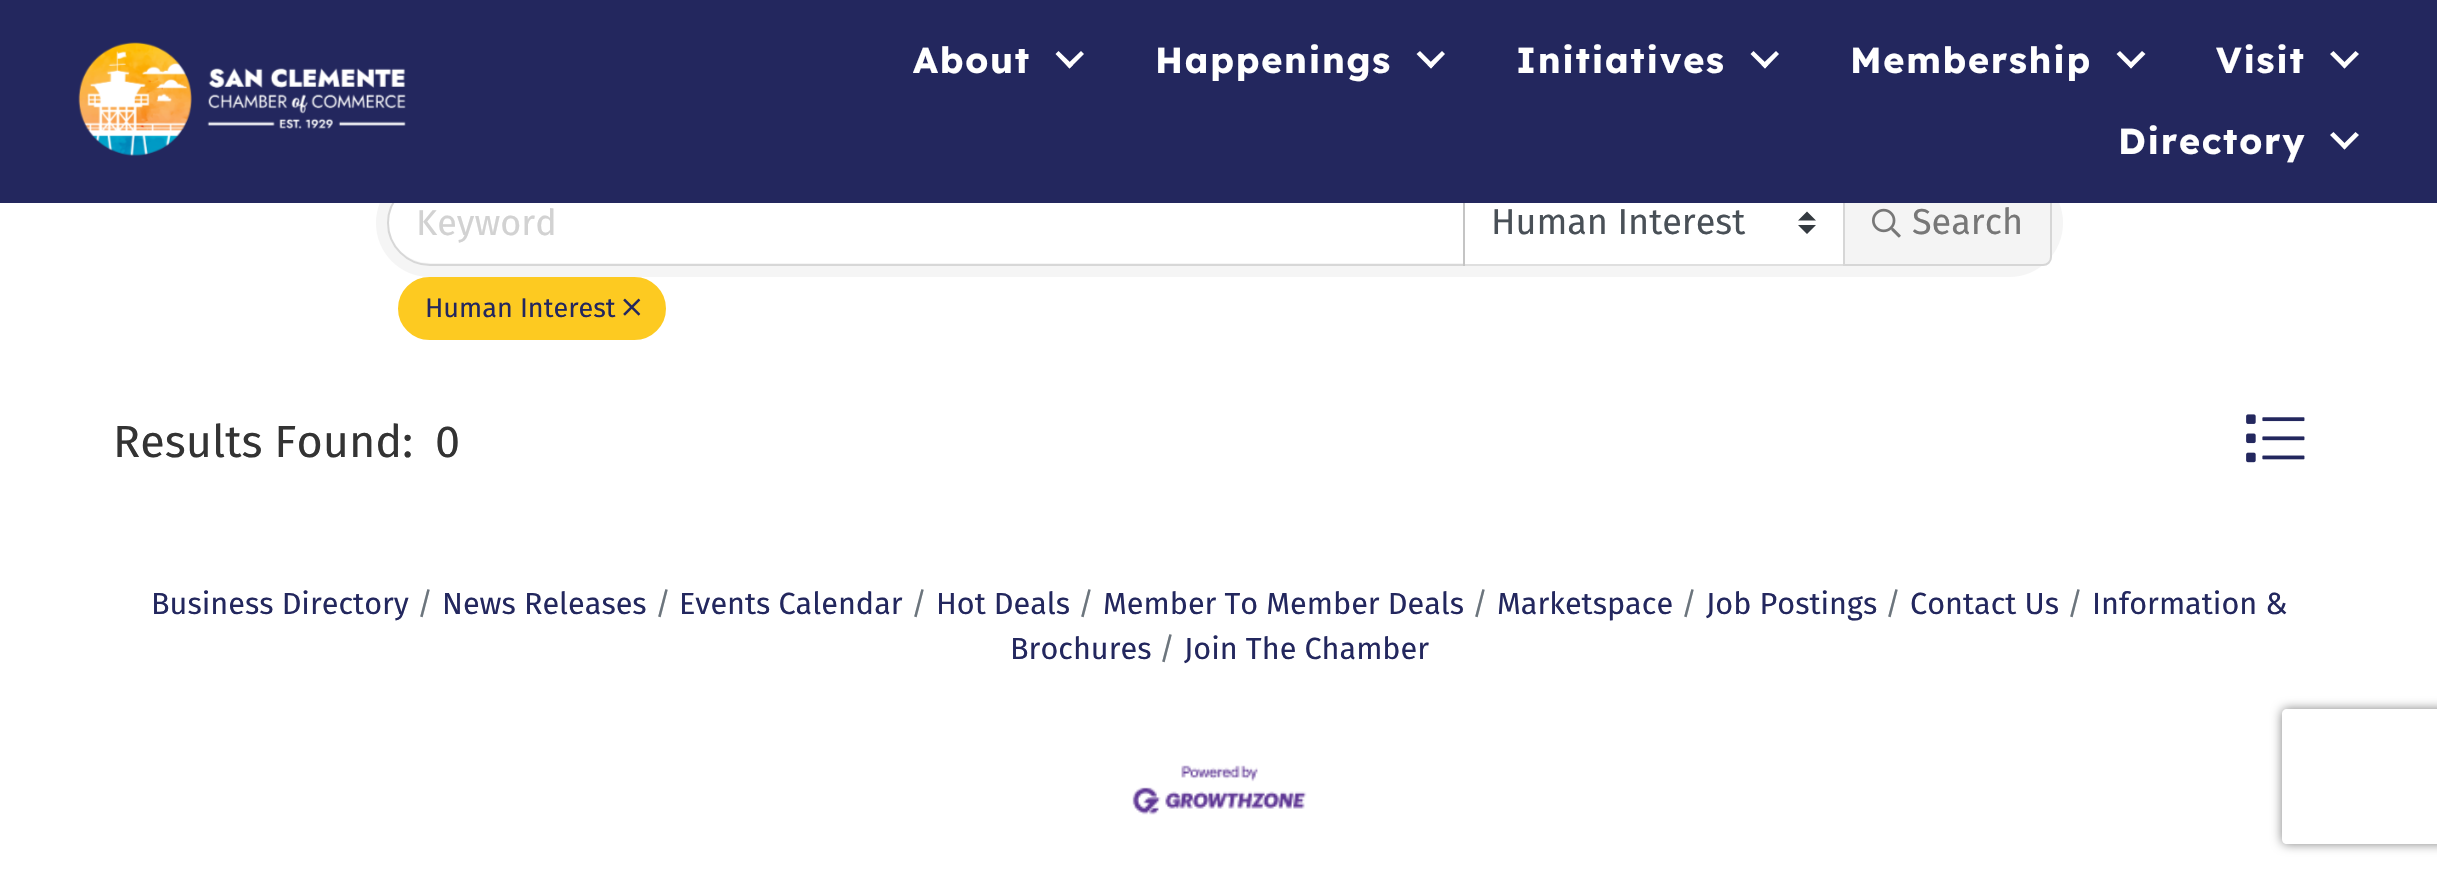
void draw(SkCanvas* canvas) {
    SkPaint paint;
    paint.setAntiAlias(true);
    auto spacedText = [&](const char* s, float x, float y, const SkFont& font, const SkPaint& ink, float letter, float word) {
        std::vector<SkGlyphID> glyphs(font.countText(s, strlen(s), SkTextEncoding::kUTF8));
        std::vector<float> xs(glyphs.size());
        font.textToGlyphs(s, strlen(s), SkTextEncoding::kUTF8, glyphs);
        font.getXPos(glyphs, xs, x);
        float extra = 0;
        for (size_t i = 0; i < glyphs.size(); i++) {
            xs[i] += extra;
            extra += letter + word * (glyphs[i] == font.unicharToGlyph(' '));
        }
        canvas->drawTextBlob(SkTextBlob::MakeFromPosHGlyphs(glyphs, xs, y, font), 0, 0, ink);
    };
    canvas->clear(0xFFFFFFFF);
    paint.setColor(0xFFF5F5F5);
    canvas->drawRoundRect(SkRect::MakeXYWH(376, 169, 1687, 108), 54, 54, paint);
    paint.setColor(0xFFFFFFFF);
    canvas->drawPath(SkPathBuilder().moveTo(429.5f, 182).lineTo(1463, 182).lineTo(1463, 263).lineTo(429.5f, 263).cubicTo(407, 263, 389, 245, 389, 222.5f).cubicTo(389, 200, 407, 182, 429.5f, 182).close().detach(), paint);
    canvas->drawRect(SkRect::MakeXYWH(1465, 203, 378, 61), paint);
    paint.setColor(0xFF343A40);
    canvas->drawPath(SkPathBuilder().moveTo(1807, 211.5f).lineTo(1798, 220.5f).lineTo(1816, 220.5f).close().moveTo(1807, 234).lineTo(1798, 225).lineTo(1816, 225).close().detach(), paint);
    paint.setStyle(SkPaint::kStroke_Style);
    paint.setStrokeWidth(2);
    paint.setColor(0xFFDFDFDF);
    canvas->drawRect(SkRect::MakeXYWH(1464, 181, 380, 84), paint);
    paint.setColor(0x1F000000);
    canvas->drawPath(SkPathBuilder().moveTo(430, 181).lineTo(1464, 181).lineTo(1464, 265).lineTo(430, 265).cubicTo(407, 265, 388, 246, 388, 223).cubicTo(388, 200, 407, 181, 430, 181).close().detach(), paint);
    paint.setStyle(SkPaint::kFill_Style);
    paint.setColor(0xFFF4F4F4);
    canvas->drawPath(SkPathBuilder().moveTo(1843, 180).lineTo(2043, 180).cubicTo(2048, 180, 2052, 184, 2052, 189).lineTo(2052, 257).cubicTo(2052, 262, 2048, 266, 2043, 266).lineTo(1843, 266).close().detach(), paint);
    paint.setStyle(SkPaint::kStroke_Style);
    paint.setColor(0x1F000000);
    canvas->drawPath(SkPathBuilder().moveTo(1844, 181).lineTo(2043, 181).cubicTo(2047.5f, 181, 2051, 184.5f, 2051, 189).lineTo(2051, 257).cubicTo(2051, 261.5f, 2047.5f, 265, 2043, 265).lineTo(1844, 265).close().detach(), paint);
    paint.setStyle(SkPaint::kFill_Style);
    paint.setColor(0xFF23275E);
    canvas->drawRect(SkRect::MakeXYWH(0, 0, 2437, 203), paint);
    canvas->drawImageRect(SkImages::DeferredFromEncodedData(SkData::MakeFromFileName("img1.png")), SkRect::MakeXYWH(78, 42, 328, 114), SkSamplingOptions());
    SkFont font1(fontMgr->matchFamilyStyle("Lexend Deca", SkFontStyle::Bold()), 36);
    font1.setSubpixel(true);
    paint.setColor(0xFFFFFFFF);
    spacedText("About", 913, 73, font1, paint, 1.75f, 0);
    canvas->drawPath(SkPathBuilder().moveTo(1081, 51).lineTo(1084, 54).lineTo(1069.5f, 68.5f).lineTo(1066.5f, 65).close().detach(), paint);
    canvas->drawPath(SkPathBuilder().moveTo(1058.5f, 51).lineTo(1073, 65).lineTo(1069.5f, 68.5f).lineTo(1055.5f, 54).close().detach(), paint);
    spacedText("Happenings", 1155, 73, font1, paint, 1.75f, 0);
    canvas->drawPath(SkPathBuilder().moveTo(1442, 51).lineTo(1445, 54).lineTo(1431, 68.5f).lineTo(1427.5f, 65).close().detach(), paint);
    canvas->drawPath(SkPathBuilder().moveTo(1420, 51).lineTo(1434, 65).lineTo(1431, 68.5f).lineTo(1416.5f, 54).close().detach(), paint);
    spacedText("Initiatives", 1516, 73, font1, paint, 1.75f, 0);
    canvas->drawPath(SkPathBuilder().moveTo(1776, 51).lineTo(1779, 54).lineTo(1765, 68.5f).lineTo(1761.5f, 65).close().detach(), paint);
    canvas->drawPath(SkPathBuilder().moveTo(1753.5f, 51).lineTo(1768, 65).lineTo(1765, 68.5f).lineTo(1750.5f, 54).close().detach(), paint);
    spacedText("Membership", 1850, 73, font1, paint, 1.75f, 0);
    canvas->drawPath(SkPathBuilder().moveTo(2142, 51).lineTo(2145.5f, 54).lineTo(2131, 68.5f).lineTo(2128, 65).close().detach(), paint);
    canvas->drawPath(SkPathBuilder().moveTo(2120, 51).lineTo(2134, 65).lineTo(2131, 68.5f).lineTo(2116.5f, 54).close().detach(), paint);
    spacedText("Visit", 2216, 73, font1, paint, 1.75f, 0);
    canvas->drawPath(SkPathBuilder().moveTo(2355.5f, 51).lineTo(2359, 54).lineTo(2344.5f, 68.5f).lineTo(2341.5f, 65).close().detach(), paint);
    canvas->drawPath(SkPathBuilder().moveTo(2333.5f, 51).lineTo(2347.5f, 65).lineTo(2344.5f, 68.5f).lineTo(2330, 54).close().detach(), paint);
    spacedText("Directory", 2118, 154, font1, paint, 1.75f, 0);
    canvas->drawPath(SkPathBuilder().moveTo(2355.5f, 132).lineTo(2359, 135).lineTo(2344.5f, 149.5f).lineTo(2341.5f, 146).close().detach(), paint);
    canvas->drawPath(SkPathBuilder().moveTo(2333.5f, 132).lineTo(2347.5f, 146).lineTo(2344.5f, 149.5f).lineTo(2330, 135).close().detach(), paint);
    SkFont font2(fontMgr->matchFamilyStyle("Fira Sans", SkFontStyle::Normal()), 36);
    font2.setSubpixel(true);
    paint.setColor(0xFFD2D2D2);
    canvas->drawString("Keyword", 416, 235, font2, paint);
    paint.setColor(0xFF495057);
    canvas->drawString("Human Interest", 1491, 234, font2, paint);
    canvas->drawImageRect(SkImages::DeferredFromEncodedData(SkData::MakeFromFileName("img2.png")), SkRect::MakeXYWH(1872, 208, 29, 30), SkSamplingOptions());
    paint.setColor(0xFF777777);
    canvas->drawString("Search", 1912, 234, font2, paint);
    paint.setColor(0xFFFDCA21);
    canvas->drawRoundRect(SkRect::MakeXYWH(399, 278, 266, 61), 30.5f, 30.5f, paint);
    paint.setStyle(SkPaint::kStroke_Style);
    canvas->drawRoundRect(SkRect::MakeXYWH(399, 278, 266, 61), 30.5f, 30.5f, paint);
    SkFont font3(fontMgr->matchFamilyStyle("Fira Sans", SkFontStyle::Normal()), 27);
    font3.setSubpixel(true);
    paint.setStyle(SkPaint::kFill_Style);
    paint.setColor(0xFF23275E);
    canvas->drawString("Human Interest", 425, 317, font3, paint);
    canvas->drawImageRect(SkImages::DeferredFromEncodedData(SkData::MakeFromFileName("img3.png")), SkRect::MakeXYWH(623, 298, 18, 18), SkSamplingOptions());
    SkFont font4(fontMgr->matchFamilyStyle("Fira Sans", SkFontStyle::Normal()), 45);
    font4.setSubpixel(true);
    paint.setColor(0xFF333333);
    canvas->drawString("Results Found:", 113, 457, font4, paint);
    canvas->drawString("0", 435, 457, font4, paint);
    canvas->drawImageRect(SkImages::DeferredFromEncodedData(SkData::MakeFromFileName("img4.png")), SkRect::MakeXYWH(2246, 414, 59, 49), SkSamplingOptions());
    SkFont font5(fontMgr->matchFamilyStyle("Fira Sans", SkFontStyle::Normal()), 30.6f);
    font5.setSubpixel(true);
    paint.setColor(0xFF6C757D);
    canvas->drawString("/", 417, 614, font5, paint);
    paint.setColor(0xFF23275E);
    canvas->drawString("News Releases", 442, 614, font5, paint);
    paint.setColor(0xFF6C757D);
    canvas->drawString("/", 655, 614, font5, paint);
    paint.setColor(0xFF23275E);
    canvas->drawString("Events Calendar", 679, 614, font5, paint);
    paint.setColor(0xFF6C757D);
    canvas->drawString("/", 911, 614, font5, paint);
    paint.setColor(0xFF23275E);
    canvas->drawString("Hot Deals", 936, 614, font5, paint);
    paint.setColor(0xFF6C757D);
    canvas->drawString("/", 2067, 614, font5, paint);
    paint.setColor(0xFF23275E);
    canvas->drawString("Information &", 2092, 614, font5, paint);
    canvas->drawString("Brochures", 1010, 659, font5, paint);
    canvas->drawString("Business Directory", 151, 614, font5, paint);
    paint.setColor(0xFF6C757D);
    canvas->drawString("/", 1078, 614, font5, paint);
    paint.setColor(0xFF23275E);
    canvas->drawString("Member To Member Deals", 1103, 614, font5, paint);
    paint.setColor(0xFF6C757D);
    canvas->drawString("/", 1472, 614, font5, paint);
    paint.setColor(0xFF23275E);
    canvas->drawString("Marketspace", 1497, 614, font5, paint);
    paint.setColor(0xFF6C757D);
    canvas->drawString("/", 1681, 614, font5, paint);
    paint.setColor(0xFF23275E);
    canvas->drawString("Job Postings", 1706, 614, font5, paint);
    paint.setColor(0xFF6C757D);
    canvas->drawString("/", 1885, 614, font5, paint);
    paint.setColor(0xFF23275E);
    canvas->drawString("Contact Us", 1910, 614, font5, paint);
    paint.setColor(0xFF6C757D);
    canvas->drawString("/", 1159, 659, font5, paint);
    paint.setColor(0xFF23275E);
    canvas->drawString("Join The Chamber", 1184, 659, font5, paint);
    canvas->drawImageRect(SkImages::DeferredFromEncodedData(SkData::MakeFromFileName("img5.png")), SkRect::MakeXYWH(1132, 765, 175, 50), SkSamplingOptions());
    canvas->save();
    canvas->clipPath(SkPathBuilder(SkPathFillType::kEvenOdd).moveTo(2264, 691).lineTo(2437, 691).lineTo(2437, 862).lineTo(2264, 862).close().moveTo(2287, 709).lineTo(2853, 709).cubicTo(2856, 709, 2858, 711, 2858, 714).lineTo(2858, 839).cubicTo(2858, 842, 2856, 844, 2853, 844).lineTo(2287, 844).cubicTo(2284, 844, 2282, 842, 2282, 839).lineTo(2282, 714).cubicTo(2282, 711, 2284, 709, 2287, 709).close().detach(), true);
    paint.setColor(0xFF808080);
    paint.setMaskFilter(SkMaskFilter::MakeBlur(kNormal_SkBlurStyle, 5.5f));
    canvas->drawRoundRect(SkRect::MakeXYWH(2282, 709, 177, 135), 5, 5, paint);
    paint.setMaskFilter(nullptr);
    canvas->restore();
}
